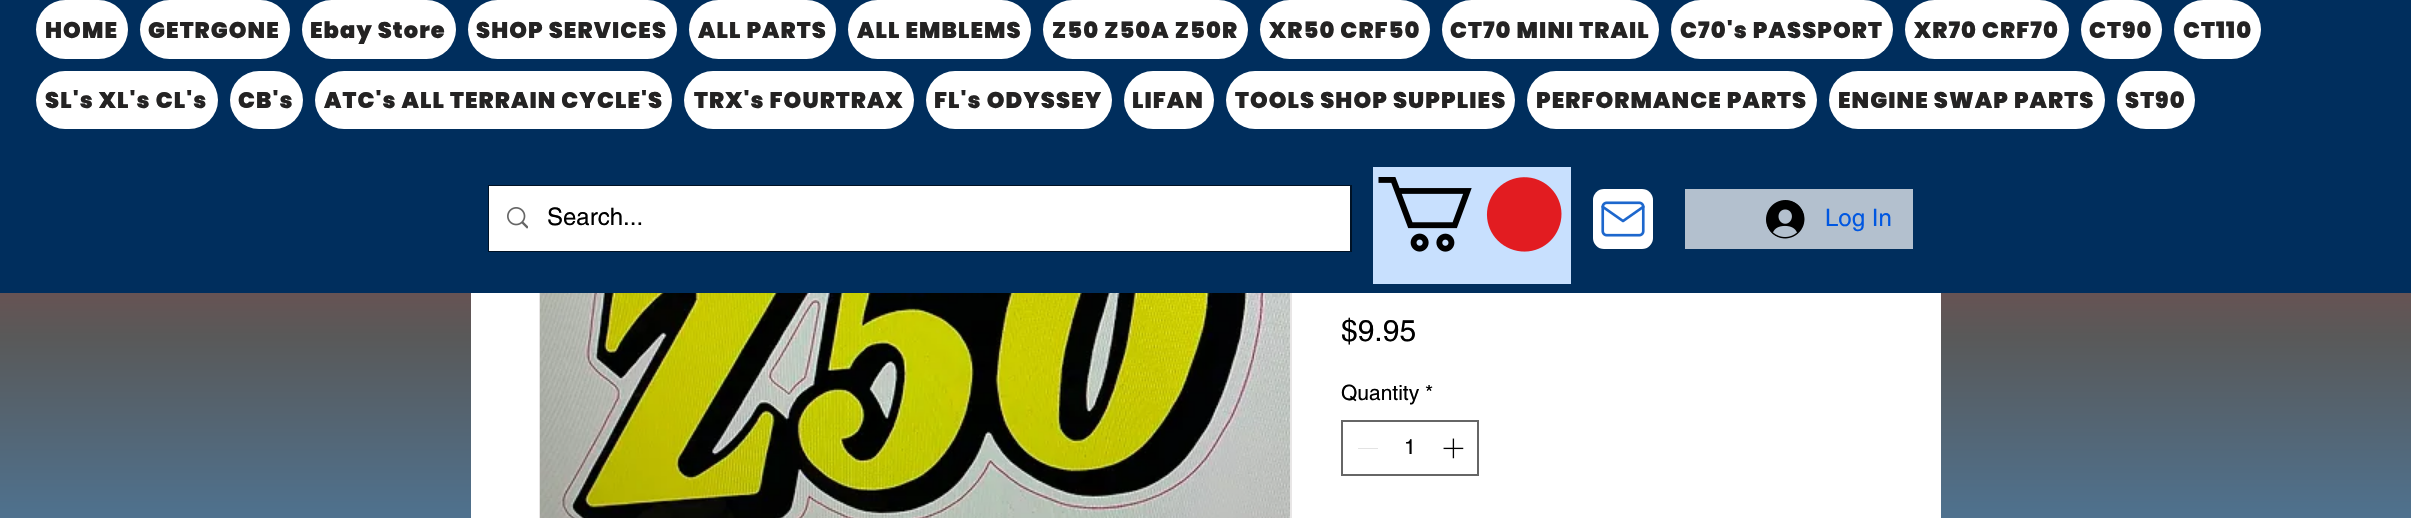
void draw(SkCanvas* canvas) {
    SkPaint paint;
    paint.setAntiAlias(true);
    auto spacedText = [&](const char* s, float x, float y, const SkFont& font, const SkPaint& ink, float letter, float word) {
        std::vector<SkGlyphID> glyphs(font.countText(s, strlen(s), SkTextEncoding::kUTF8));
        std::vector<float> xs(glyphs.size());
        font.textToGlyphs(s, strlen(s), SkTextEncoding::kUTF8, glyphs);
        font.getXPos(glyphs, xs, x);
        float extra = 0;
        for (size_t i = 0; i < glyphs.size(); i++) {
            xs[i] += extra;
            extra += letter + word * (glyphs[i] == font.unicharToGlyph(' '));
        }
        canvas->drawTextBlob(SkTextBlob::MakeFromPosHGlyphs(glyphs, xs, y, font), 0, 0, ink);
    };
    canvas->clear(0xFFFFFFFF);
    {
        const SkColor colors[] = {0xFFE21C21, 0xFF595959, 0xFF3D9BE9};
        const float stops[] = {0, 0.48f, 1};
        const SkPoint ends[] = {{1206, -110}, {1206, 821}};
        paint.setShader(SkGradientShader::MakeLinear(ends, colors, stops, 3, SkTileMode::kClamp));
        paint.setAlpha(255);
    }
    canvas->drawRect(SkRect::MakeXYWH(0, 293, 2411, 225), paint);
    paint.setShader(nullptr);
    paint.setColor(0xFFFFFFFF);
    canvas->drawRect(SkRect::MakeXYWH(471, 293, 1470, 225), paint);
    paint.setStyle(SkPaint::kStroke_Style);
    paint.setStrokeWidth(2);
    paint.setColor(0xFFE8E6E6);
    canvas->drawRect(SkRect::MakeXYWH(540, 105, 751, 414), paint);
    paint.setStyle(SkPaint::kFill_Style);
    paint.setColor(0xFF002E5D);
    canvas->drawRect(SkRect::MakeXYWH(0, 0, 2411, 293), paint);
    paint.setColor(0xFFFFFFFF);
    canvas->drawRoundRect(SkRect::MakeXYWH(36, 0, 92, 59), 29.5f, 29.5f, paint);
    SkFont font1(fontMgr->matchFamilyStyle("Poppins", SkFontStyle(900, SkFontStyle::kNormal_Width, SkFontStyle::kUpright_Slant)), 22.5f);
    font1.setSubpixel(true);
    paint.setColor(0xFF242323);
    spacedText("HOME", 45, 38, font1, paint, 1.1f, 0);
    paint.setColor(0xFFFFFFFF);
    canvas->drawRoundRect(SkRect::MakeXYWH(140, 0, 150, 59), 29.5f, 29.5f, paint);
    paint.setColor(0xFF242323);
    spacedText("GETRGONE", 148, 38, font1, paint, 1.1f, 0);
    paint.setColor(0xFFFFFFFF);
    canvas->drawRoundRect(SkRect::MakeXYWH(302, 0, 154, 59), 29.5f, 29.5f, paint);
    paint.setColor(0xFF242323);
    spacedText("Ebay Store", 310, 38, font1, paint, 1.1f, 0);
    paint.setColor(0xFFFFFFFF);
    canvas->drawRoundRect(SkRect::MakeXYWH(468, 0, 209, 59), 29.5f, 29.5f, paint);
    paint.setColor(0xFF242323);
    spacedText("SHOP SERVICES", 476, 38, font1, paint, 1.1f, 0);
    paint.setColor(0xFFFFFFFF);
    canvas->drawRoundRect(SkRect::MakeXYWH(689, 0, 147, 59), 29.5f, 29.5f, paint);
    paint.setColor(0xFF242323);
    spacedText("ALL PARTS", 698, 38, font1, paint, 1.1f, 0);
    paint.setColor(0xFFFFFFFF);
    canvas->drawRoundRect(SkRect::MakeXYWH(848, 0, 183, 59), 29.5f, 29.5f, paint);
    paint.setColor(0xFF242323);
    spacedText("ALL EMBLEMS", 857, 38, font1, paint, 1.1f, 0);
    paint.setColor(0xFFFFFFFF);
    canvas->drawRoundRect(SkRect::MakeXYWH(1043, 0, 205, 59), 29.5f, 29.5f, paint);
    paint.setColor(0xFF242323);
    spacedText("Z50 Z50A Z50R", 1052, 38, font1, paint, 1.1f, 0);
    paint.setColor(0xFFFFFFFF);
    canvas->drawRoundRect(SkRect::MakeXYWH(1260, 0, 170, 59), 29.5f, 29.5f, paint);
    paint.setColor(0xFF242323);
    spacedText("XR50 CRF50", 1269, 38, font1, paint, 1.1f, 0);
    paint.setColor(0xFFFFFFFF);
    canvas->drawRoundRect(SkRect::MakeXYWH(1442, 0, 217, 59), 29.5f, 29.5f, paint);
    paint.setColor(0xFF242323);
    spacedText("CT70 MINI TRAIL", 1450, 38, font1, paint, 1.1f, 0);
    paint.setColor(0xFFFFFFFF);
    canvas->drawRoundRect(SkRect::MakeXYWH(1671, 0, 222, 59), 29.5f, 29.5f, paint);
    paint.setColor(0xFF242323);
    spacedText("C70's PASSPORT", 1680, 38, font1, paint, 1.1f, 0);
    paint.setColor(0xFFFFFFFF);
    canvas->drawRoundRect(SkRect::MakeXYWH(1905, 0, 164, 59), 29.5f, 29.5f, paint);
    paint.setColor(0xFF242323);
    spacedText("XR70 CRF70", 1914, 38, font1, paint, 1.1f, 0);
    paint.setColor(0xFFFFFFFF);
    canvas->drawRoundRect(SkRect::MakeXYWH(2081, 0, 81, 59), 29.5f, 29.5f, paint);
    paint.setColor(0xFF242323);
    spacedText("CT90", 2089, 38, font1, paint, 1.1f, 0);
    paint.setColor(0xFFFFFFFF);
    canvas->drawRoundRect(SkRect::MakeXYWH(2174, 0, 87, 59), 29.5f, 29.5f, paint);
    paint.setColor(0xFF242323);
    spacedText("CT110", 2183, 38, font1, paint, 1.1f, 0);
    paint.setColor(0xFFFFFFFF);
    canvas->drawRoundRect(SkRect::MakeXYWH(36, 71, 182, 58), 29, 29, paint);
    paint.setColor(0xFF242323);
    spacedText("SL's XL's CL's", 45, 108, font1, paint, 1.1f, 0);
    paint.setColor(0xFFFFFFFF);
    canvas->drawRoundRect(SkRect::MakeXYWH(230, 71, 73, 58), 29, 29, paint);
    paint.setColor(0xFF242323);
    spacedText("CB's", 238, 108, font1, paint, 1.1f, 0);
    paint.setColor(0xFFFFFFFF);
    canvas->drawRoundRect(SkRect::MakeXYWH(315, 71, 357, 58), 29, 29, paint);
    paint.setColor(0xFF242323);
    spacedText("ATC's ALL TERRAIN CYCLE'S", 324, 108, font1, paint, 1.1f, 0);
    paint.setColor(0xFFFFFFFF);
    canvas->drawRoundRect(SkRect::MakeXYWH(684, 71, 230, 58), 29, 29, paint);
    paint.setColor(0xFF242323);
    spacedText("TRX's FOURTRAX", 694, 108, font1, paint, 1.1f, 0);
    paint.setColor(0xFFFFFFFF);
    canvas->drawRoundRect(SkRect::MakeXYWH(926, 71, 186, 58), 29, 29, paint);
    paint.setColor(0xFF242323);
    spacedText("FL's ODYSSEY", 934, 108, font1, paint, 1.1f, 0);
    paint.setColor(0xFFFFFFFF);
    canvas->drawRoundRect(SkRect::MakeXYWH(1124, 71, 90, 58), 29, 29, paint);
    paint.setColor(0xFF242323);
    spacedText("LIFAN", 1132, 108, font1, paint, 1.1f, 0);
    paint.setColor(0xFFFFFFFF);
    canvas->drawRoundRect(SkRect::MakeXYWH(1226, 71, 289, 58), 29, 29, paint);
    paint.setColor(0xFF242323);
    spacedText("TOOLS SHOP SUPPLIES", 1235, 108, font1, paint, 1.1f, 0);
    paint.setColor(0xFFFFFFFF);
    canvas->drawRoundRect(SkRect::MakeXYWH(1527, 71, 290, 58), 29, 29, paint);
    paint.setColor(0xFF242323);
    spacedText("PERFORMANCE PARTS", 1536, 108, font1, paint, 1.1f, 0);
    paint.setColor(0xFFFFFFFF);
    canvas->drawRoundRect(SkRect::MakeXYWH(1829, 71, 276, 58), 29, 29, paint);
    paint.setColor(0xFF242323);
    spacedText("ENGINE SWAP PARTS", 1838, 108, font1, paint, 1.1f, 0);
    paint.setColor(0xFFFFFFFF);
    canvas->drawRoundRect(SkRect::MakeXYWH(2117, 71, 78, 58), 29, 29, paint);
    paint.setColor(0xFF242323);
    spacedText("ST90", 2125, 108, font1, paint, 1.1f, 0);
    paint.setStyle(SkPaint::kStroke_Style);
    paint.setColor(0xFF001225);
    canvas->drawRect(SkRect::MakeXYWH(489, 186, 862, 65), paint);
    paint.setStyle(SkPaint::kFill_Style);
    paint.setColor(0xFFFFFFFF);
    canvas->drawRect(SkRect::MakeXYWH(489, 186, 861, 65), paint);
    canvas->drawImageRect(SkImages::DeferredFromEncodedData(SkData::MakeFromFileName("img1.png")), SkRect::MakeXYWH(507, 207, 21, 22), SkSamplingOptions());
    SkFont font2(fontMgr->matchFamilyStyle("helvetica", SkFontStyle::Normal()), 24);
    font2.setSubpixel(true);
    paint.setColor(0xFF000000);
    canvas->drawString("Search...", 547, 225, font2, paint);
    paint.setColor(0xFFC8E0FE);
    canvas->drawRect(SkRect::MakeXYWH(1373, 167, 198, 117), paint);
    canvas->drawImageRect(SkImages::DeferredFromEncodedData(SkData::MakeFromFileName("img2.png")), SkRect::MakeXYWH(1378, 177, 184, 75), SkSamplingOptions());
    paint.setColor(0xFFFFFFFF);
    canvas->drawRoundRect(SkRect::MakeXYWH(1593, 189, 60, 60), 11, 11, paint);
    canvas->drawImageRect(SkImages::DeferredFromEncodedData(SkData::MakeFromFileName("img3.png")), SkRect::MakeXYWH(1601, 201, 44, 36), SkSamplingOptions());
    paint.setColor(0xFFB3C0CE);
    canvas->drawRect(SkRect::MakeXYWH(1685, 189, 228, 60), paint);
    canvas->drawImageRect(SkImages::DeferredFromEncodedData(SkData::MakeFromFileName("img4.png")), SkRect::MakeXYWH(1766, 200, 39, 39), SkSamplingOptions());
    paint.setColor(0xFF0057E1);
    canvas->drawString("Log In", 1825, 226, font2, paint);
    canvas->drawImageRect(SkImages::DeferredFromEncodedData(SkData::MakeFromFileName("img5.png")), SkRect::MakeXYWH(540, 293, 750, 225), SkSamplingOptions());
    SkFont font3(fontMgr->matchFamilyStyle("helvetica", SkFontStyle::Normal()), 30);
    font3.setSubpixel(true);
    paint.setColor(0xFF000000);
    canvas->drawString("$9.95", 1341, 341, font3, paint);
    SkFont font4(fontMgr->matchFamilyStyle("helvetica", SkFontStyle::Normal()), 21);
    font4.setSubpixel(true);
    canvas->drawString("Quantity *", 1341, 400, font4, paint);
    paint.setStyle(SkPaint::kStroke_Style);
    paint.setColor(0xFF666666);
    canvas->drawRect(SkRect::MakeXYWH(1342, 421, 136, 54), paint);
    paint.setStyle(SkPaint::kFill_Style);
    paint.setColor(0xFFE3E3E3);
    canvas->drawRect(SkRect::MakeXYWH(1358, 448, 20, 1), paint);
    paint.setColor(0xFF000000);
    canvas->drawString("1", 1404, 454, font4, paint);
    canvas->drawImageRect(SkImages::DeferredFromEncodedData(SkData::MakeFromFileName("img6.png")), SkRect::MakeXYWH(1443, 438, 21, 21), SkSamplingOptions());
}
